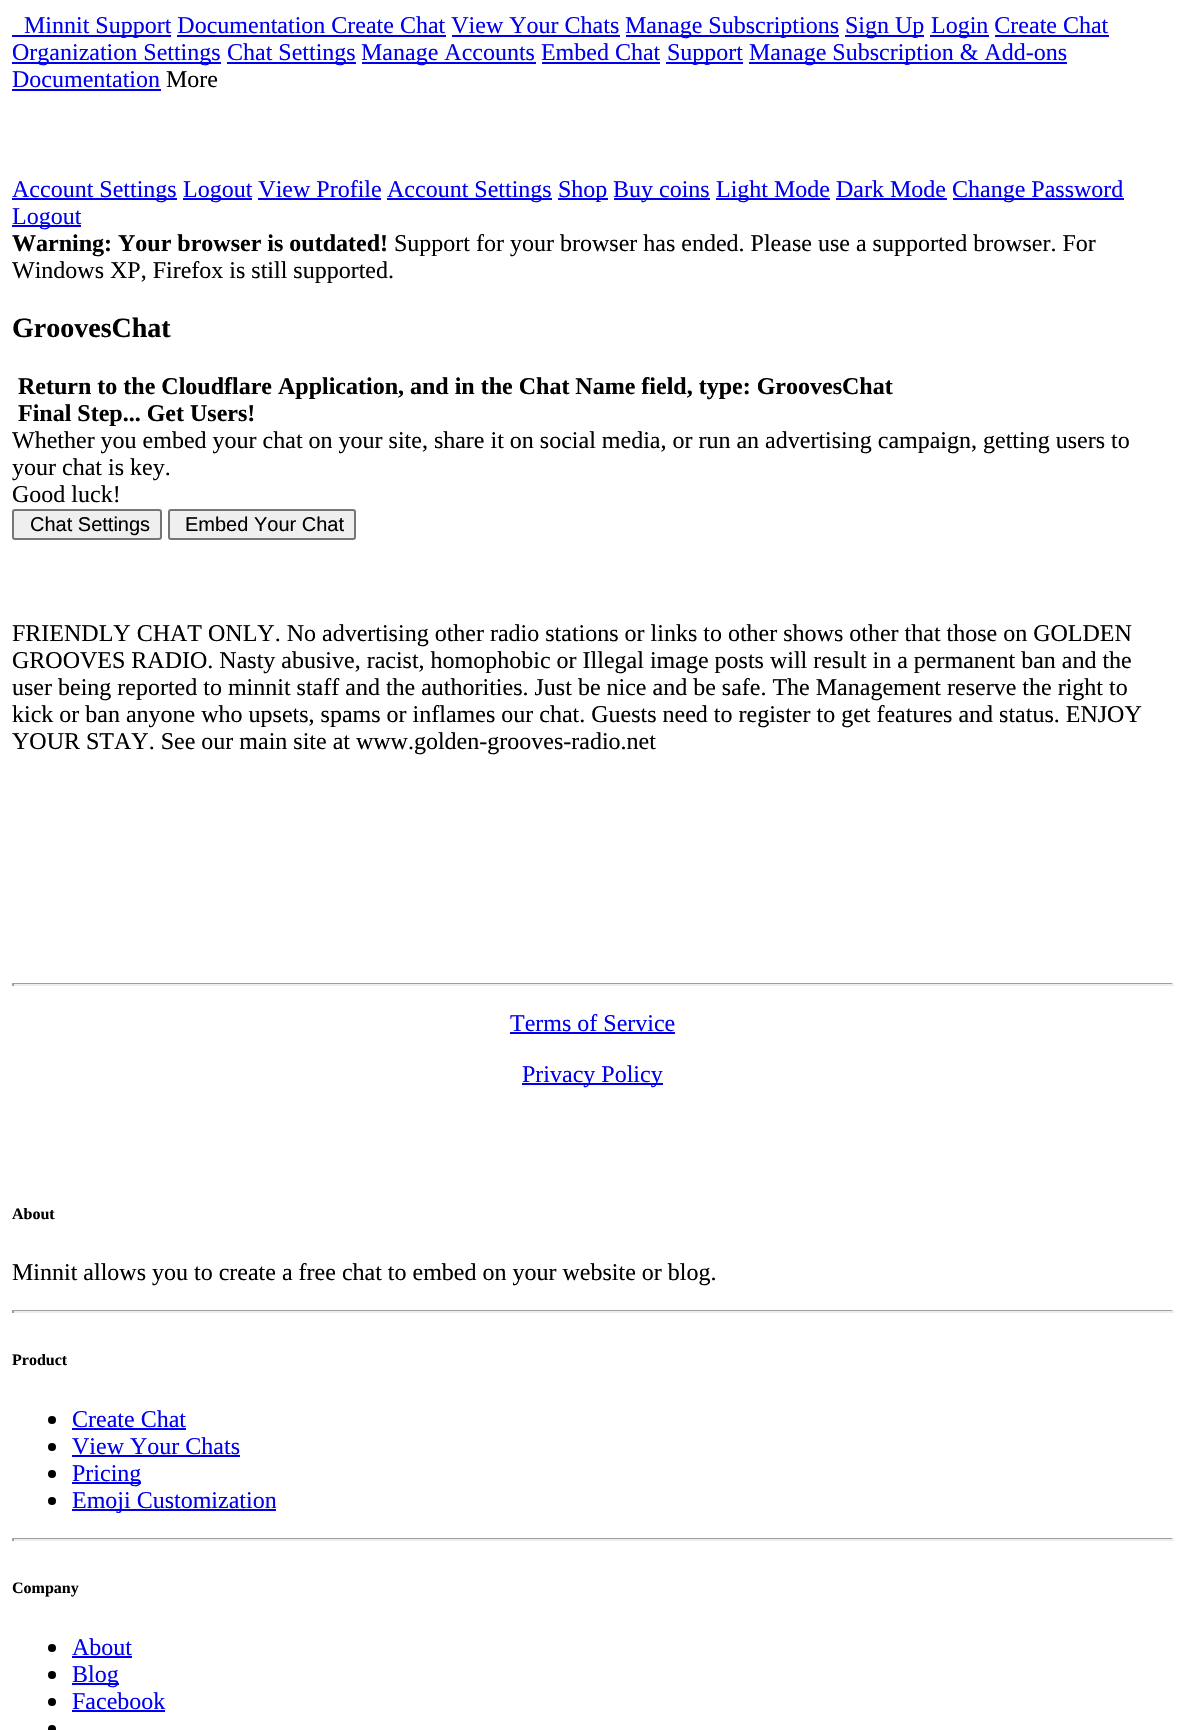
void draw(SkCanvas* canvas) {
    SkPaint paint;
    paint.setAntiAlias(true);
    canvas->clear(0xFFFFFFFF);
    paint.setColor(0xFF0000EE);
    canvas->drawRect(SkRect::MakeXYWH(12, 35, 159, 2), paint);
    SkFont font1(fontMgr->matchFamilyStyle("Liberation Serif", SkFontStyle::Normal()), 24);
    font1.setSubpixel(true);
    canvas->drawString("Minnit Support Documentation Create Chat View Your Chats", 24, 33, font1, paint);
    canvas->drawRect(SkRect::MakeXYWH(626, 35, 213, 2), paint);
    canvas->drawString("Manage Subscriptions", 625, 33, font1, paint);
    canvas->drawRect(SkRect::MakeXYWH(845, 35, 79, 2), paint);
    canvas->drawString("Sign Up", 845, 33, font1, paint);
    canvas->drawRect(SkRect::MakeXYWH(930, 35, 59, 2), paint);
    canvas->drawString("Login Create Chat", 931, 33, font1, paint);
    canvas->drawRect(SkRect::MakeXYWH(177, 35, 269, 2), paint);
    canvas->drawRect(SkRect::MakeXYWH(452, 35, 168, 2), paint);
    canvas->drawRect(SkRect::MakeXYWH(995, 35, 114, 2), paint);
    canvas->drawRect(SkRect::MakeXYWH(12, 62, 209, 2), paint);
    canvas->drawString("Organization Settings", 12, 60, font1, paint);
    canvas->drawRect(SkRect::MakeXYWH(227, 62, 129, 2), paint);
    canvas->drawString("Chat Settings", 227, 60, font1, paint);
    canvas->drawRect(SkRect::MakeXYWH(362, 62, 174, 2), paint);
    canvas->drawString("Manage Accounts Embed Chat", 361, 60, font1, paint);
    canvas->drawRect(SkRect::MakeXYWH(666, 62, 77, 2), paint);
    canvas->drawString("Support", 667, 60, font1, paint);
    canvas->drawRect(SkRect::MakeXYWH(749, 62, 318, 2), paint);
    canvas->drawString("Manage Subscription & Add-ons", 749, 60, font1, paint);
    canvas->drawRect(SkRect::MakeXYWH(542, 62, 118, 2), paint);
    canvas->drawString("Documentation", 12, 87, font1, paint);
    canvas->drawRect(SkRect::MakeXYWH(12, 89, 149, 2), paint);
    paint.setColor(0xFF000000);
    canvas->drawString("More", 166, 87, font1, paint);
    paint.setColor(0xFF0000EE);
    canvas->drawRect(SkRect::MakeXYWH(12, 198, 165, 2), paint);
    canvas->drawString("Account Settings", 12, 197, font1, paint);
    canvas->drawRect(SkRect::MakeXYWH(183, 198, 69, 2), paint);
    canvas->drawString("Logout View Profile", 183, 197, font1, paint);
    canvas->drawRect(SkRect::MakeXYWH(387, 198, 165, 2), paint);
    canvas->drawString("Account Settings", 387, 197, font1, paint);
    canvas->drawRect(SkRect::MakeXYWH(558, 198, 50, 2), paint);
    canvas->drawString("Shop", 558, 197, font1, paint);
    canvas->drawRect(SkRect::MakeXYWH(614, 198, 96, 2), paint);
    canvas->drawString("Buy coins", 613, 197, font1, paint);
    canvas->drawRect(SkRect::MakeXYWH(716, 198, 114, 2), paint);
    canvas->drawString("Light Mode Dark Mode", 716, 197, font1, paint);
    canvas->drawRect(SkRect::MakeXYWH(953, 198, 171, 2), paint);
    canvas->drawString("Change Password", 952, 197, font1, paint);
    canvas->drawRect(SkRect::MakeXYWH(258, 198, 123, 2), paint);
    canvas->drawRect(SkRect::MakeXYWH(836, 198, 111, 2), paint);
    canvas->drawRect(SkRect::MakeXYWH(12, 225, 69, 2), paint);
    canvas->drawString("Logout", 12, 224, font1, paint);
    SkFont font2(fontMgr->matchFamilyStyle("Liberation Serif", SkFontStyle::Bold()), 24);
    font2.setSubpixel(true);
    paint.setColor(0xFF000000);
    canvas->drawString("Warning: Your browser is outdated!", 12, 251, font2, paint);
    canvas->drawString("Support for your browser has ended. Please use a supported browser. For", 394, 251, font1, paint);
    canvas->drawString("Windows XP, Firefox is still supported.", 12, 278, font1, paint);
    SkFont font3(fontMgr->matchFamilyStyle("Liberation Serif", SkFontStyle::Bold()), 28);
    font3.setSubpixel(true);
    canvas->drawString("GroovesChat", 12, 337, font3, paint);
    canvas->drawString("Return to the Cloudflare Application, and in the Chat Name field, type: GroovesChat", 18, 394, font2, paint);
    canvas->drawString("Final Step... Get Users!", 18, 421, font2, paint);
    canvas->drawString("Whether you embed your chat on your site, share it on social media, or run an advertising campaign, getting users to", 12, 448, font1, paint);
    canvas->drawString("your chat is key.", 12, 475, font1, paint);
    canvas->drawString("Good luck!", 12, 502, font1, paint);
    paint.setColor(0xFFEFEFEF);
    canvas->drawRoundRect(SkRect::MakeXYWH(13, 510, 148, 29), 2, 2, paint);
    paint.setStyle(SkPaint::kStroke_Style);
    paint.setStrokeWidth(2);
    paint.setColor(0xFF767676);
    canvas->drawRoundRect(SkRect::MakeXYWH(13, 510, 148, 29), 2, 2, paint);
    SkFont font4(fontMgr->matchFamilyStyle("Liberation Sans", SkFontStyle::Normal()), 20);
    font4.setSubpixel(true);
    paint.setStyle(SkPaint::kFill_Style);
    paint.setColor(0xFF000000);
    canvas->drawString("Chat Settings", 30, 531, font4, paint);
    paint.setColor(0xFFEFEFEF);
    canvas->drawRoundRect(SkRect::MakeXYWH(169, 510, 186, 29), 2, 2, paint);
    paint.setStyle(SkPaint::kStroke_Style);
    paint.setColor(0xFF767676);
    canvas->drawRoundRect(SkRect::MakeXYWH(169, 510, 186, 29), 2, 2, paint);
    paint.setStyle(SkPaint::kFill_Style);
    paint.setColor(0xFF000000);
    canvas->drawString("Embed Your Chat", 185, 531, font4, paint);
    canvas->drawString("FRIENDLY CHAT ONLY. No advertising other radio stations or links to other shows other that those on GOLDEN", 12, 641, font1, paint);
    canvas->drawString("GROOVES RADIO. Nasty abusive, racist, homophobic or Illegal image posts will result in a permanent ban and the", 12, 668, font1, paint);
    canvas->drawString("user being reported to minnit staff and the authorities. Just be nice and be safe. The Management reserve the right to", 12, 695, font1, paint);
    canvas->drawString("kick or ban anyone who upsets, spams or inflames our chat. Guests need to register to get features and status. ENJOY", 12, 722, font1, paint);
    canvas->drawString("YOUR STAY. See our main site at www.golden-grooves-radio.net", 12, 749, font1, paint);
    paint.setColor(0xFF9F9F9F);
    canvas->drawRect(SkRect::MakeXYWH(12, 983, 1161, 1), paint);
    paint.setColor(0xFFEEEEEE);
    canvas->drawRect(SkRect::MakeXYWH(1172, 983, 2, 3), paint);
    canvas->drawRect(SkRect::MakeXYWH(12, 984, 1161, 2), paint);
    paint.setColor(0xFF9F9F9F);
    canvas->drawRect(SkRect::MakeXYWH(12, 983, 2, 3), paint);
    paint.setColor(0xFF0000EE);
    canvas->drawString("Terms of Service", 510, 1031, font1, paint);
    canvas->drawRect(SkRect::MakeXYWH(510, 1032, 165, 2), paint);
    canvas->drawRect(SkRect::MakeXYWH(522, 1083, 141, 2), paint);
    canvas->drawString("Privacy Policy", 522, 1082, font1, paint);
    SkFont font5(fontMgr->matchFamilyStyle("Liberation Serif", SkFontStyle::Bold()), 16);
    font5.setSubpixel(true);
    paint.setColor(0xFF000000);
    canvas->drawString("About", 12, 1219, font5, paint);
    canvas->drawString("Minnit allows you to create a free chat to embed on your website or blog.", 12, 1280, font1, paint);
    paint.setColor(0xFF9F9F9F);
    canvas->drawRect(SkRect::MakeXYWH(12, 1310, 1161, 1), paint);
    paint.setColor(0xFFEEEEEE);
    canvas->drawRect(SkRect::MakeXYWH(1172, 1310, 2, 3), paint);
    canvas->drawRect(SkRect::MakeXYWH(12, 1311, 1161, 2), paint);
    paint.setColor(0xFF9F9F9F);
    canvas->drawRect(SkRect::MakeXYWH(12, 1310, 2, 3), paint);
    paint.setColor(0xFF000000);
    canvas->drawString("Product", 12, 1365, font5, paint);
    canvas->drawCircle(52, 1420, 4, paint);
    paint.setColor(0xFF0000EE);
    canvas->drawString("Create Chat", 72, 1427, font1, paint);
    canvas->drawRect(SkRect::MakeXYWH(72, 1428, 114, 2), paint);
    paint.setColor(0xFF000000);
    canvas->drawCircle(52, 1447, 4, paint);
    paint.setColor(0xFF0000EE);
    canvas->drawString("View Your Chats", 72, 1454, font1, paint);
    canvas->drawRect(SkRect::MakeXYWH(72, 1455, 168, 2), paint);
    paint.setColor(0xFF000000);
    canvas->drawCircle(52, 1474, 4, paint);
    paint.setColor(0xFF0000EE);
    canvas->drawRect(SkRect::MakeXYWH(72, 1482, 69, 2), paint);
    canvas->drawString("Pricing", 72, 1481, font1, paint);
    paint.setColor(0xFF000000);
    canvas->drawCircle(52, 1501, 4, paint);
    paint.setColor(0xFF0000EE);
    canvas->drawRect(SkRect::MakeXYWH(72, 1509, 204, 2), paint);
    canvas->drawString("Emoji Customization", 72, 1508, font1, paint);
    paint.setColor(0xFF9F9F9F);
    canvas->drawRect(SkRect::MakeXYWH(12, 1538, 1161, 1), paint);
    paint.setColor(0xFFEEEEEE);
    canvas->drawRect(SkRect::MakeXYWH(1172, 1538, 2, 3), paint);
    canvas->drawRect(SkRect::MakeXYWH(12, 1539, 1161, 2), paint);
    paint.setColor(0xFF9F9F9F);
    canvas->drawRect(SkRect::MakeXYWH(12, 1538, 2, 3), paint);
    paint.setColor(0xFF000000);
    canvas->drawString("Company", 12, 1593, font5, paint);
    canvas->drawCircle(52, 1648, 4, paint);
    paint.setColor(0xFF0000EE);
    canvas->drawString("About", 72, 1655, font1, paint);
    canvas->drawRect(SkRect::MakeXYWH(72, 1656, 60, 2), paint);
    paint.setColor(0xFF000000);
    canvas->drawCircle(52, 1675, 4, paint);
    paint.setColor(0xFF0000EE);
    canvas->drawRect(SkRect::MakeXYWH(72, 1683, 47, 2), paint);
    canvas->drawString("Blog", 72, 1682, font1, paint);
    paint.setColor(0xFF000000);
    canvas->drawCircle(52, 1702, 4, paint);
    paint.setColor(0xFF0000EE);
    canvas->drawString("Facebook", 72, 1709, font1, paint);
    canvas->drawRect(SkRect::MakeXYWH(72, 1710, 93, 2), paint);
    paint.setColor(0xFF000000);
    canvas->drawCircle(52, 1729, 4, paint);
}
